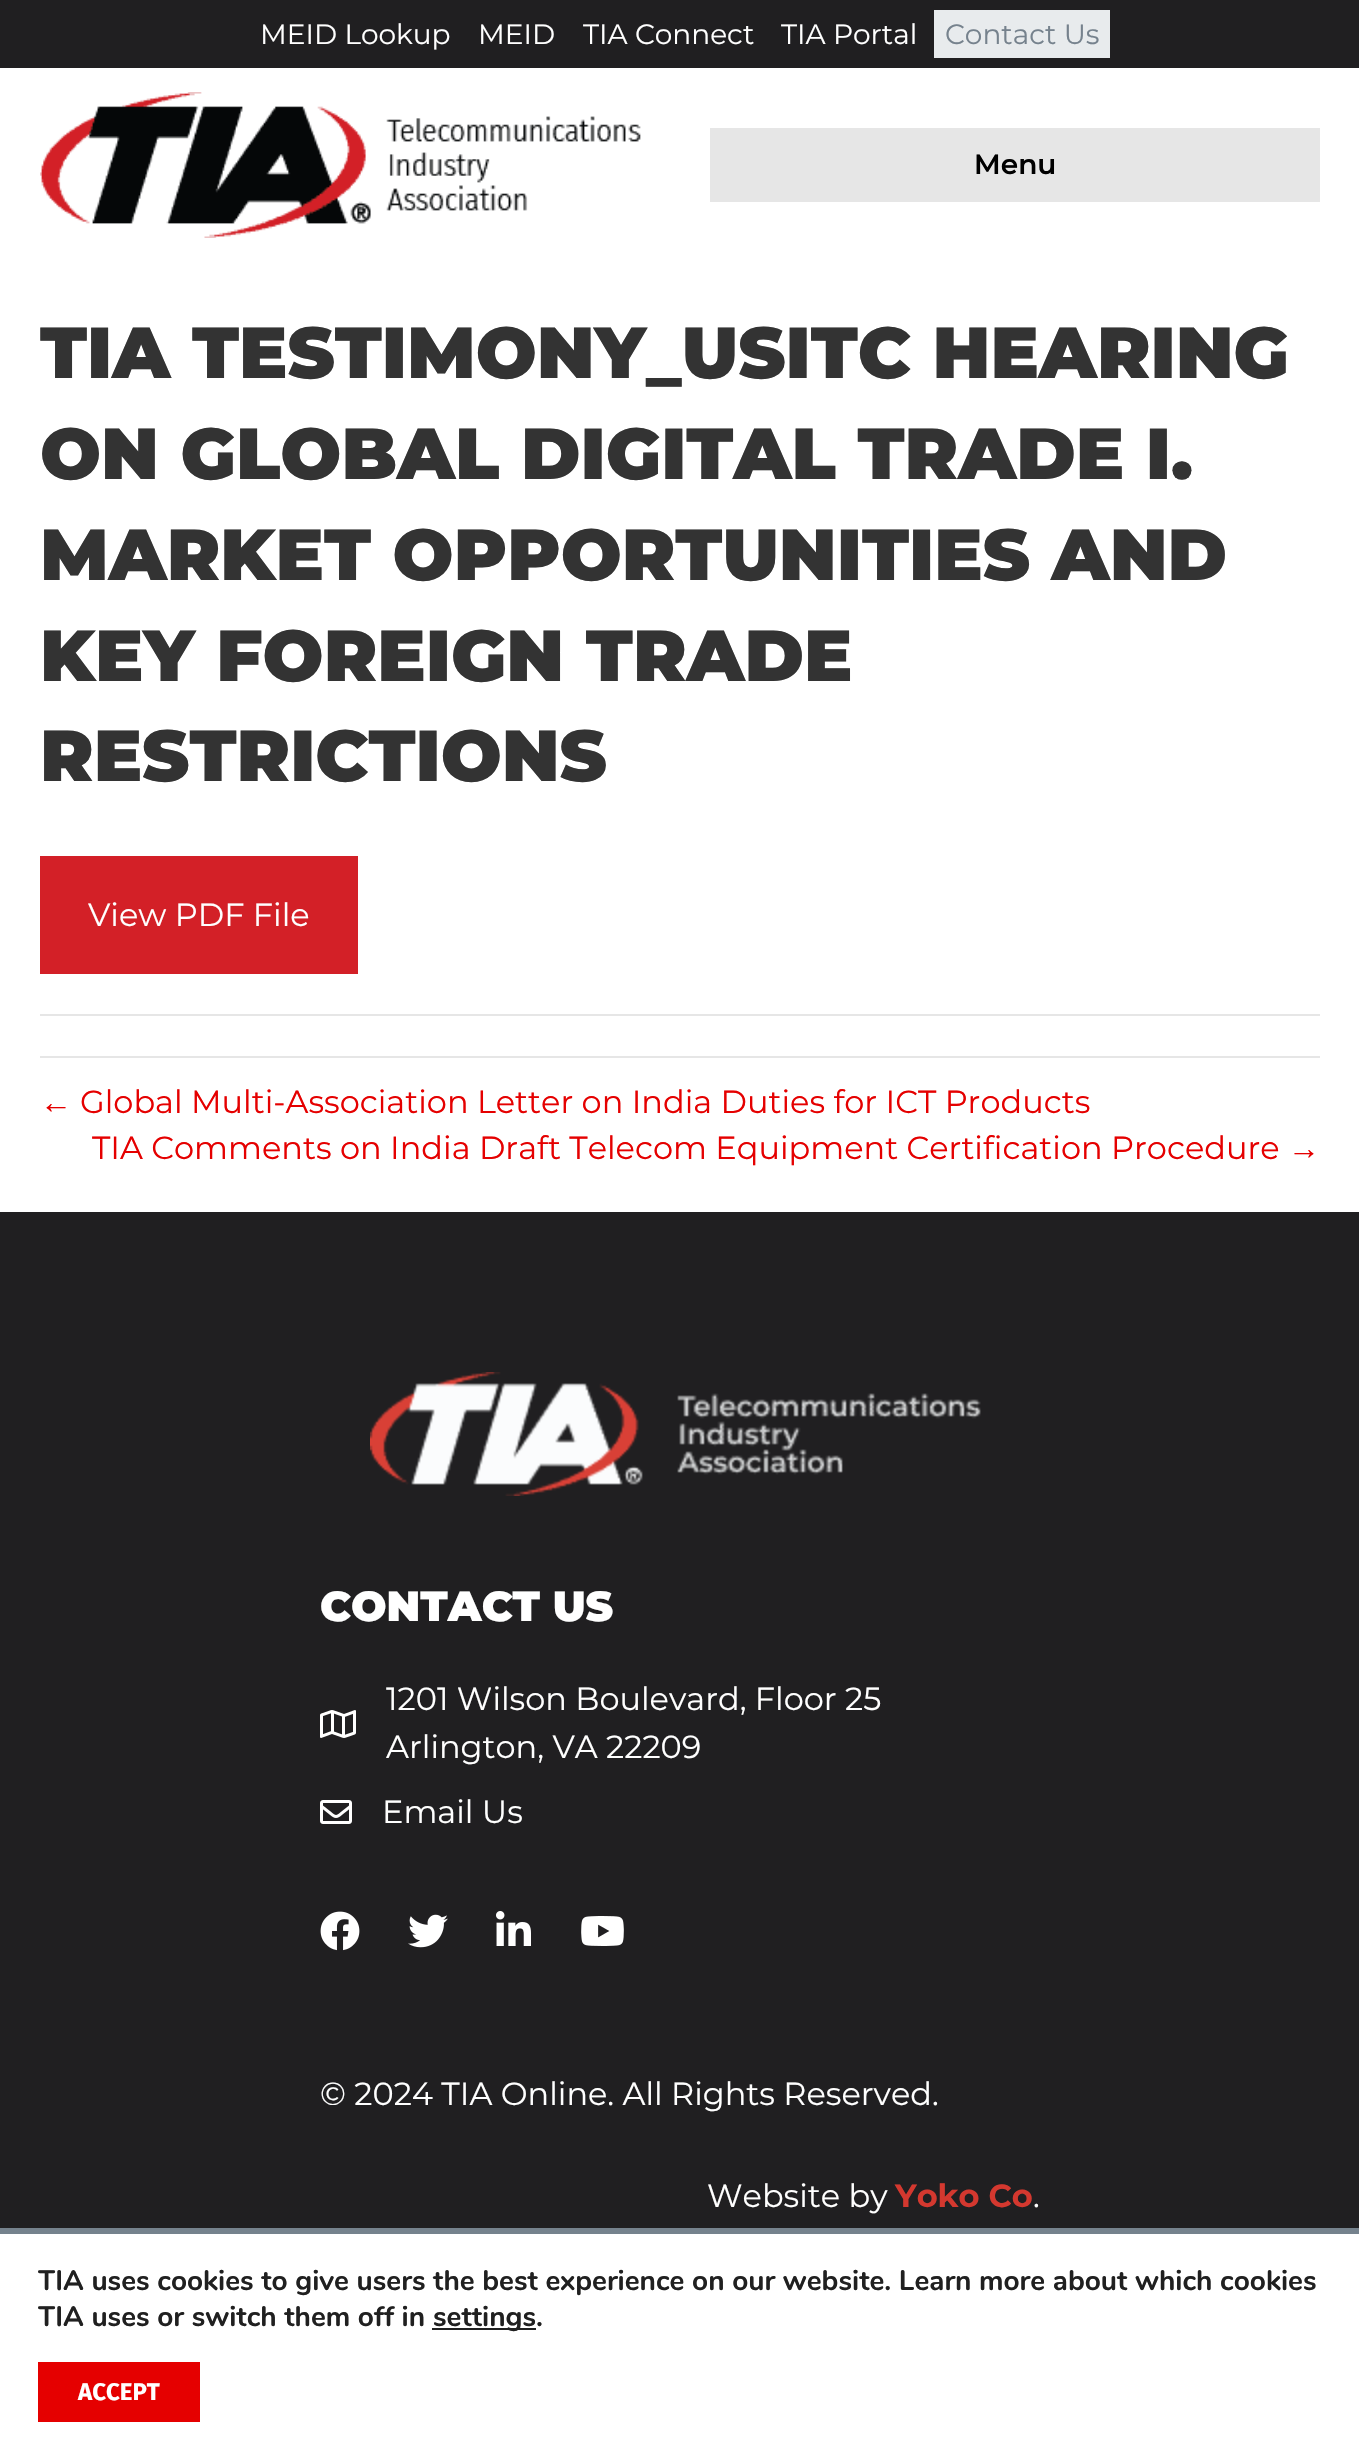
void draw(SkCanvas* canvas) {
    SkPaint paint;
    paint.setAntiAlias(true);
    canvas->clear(0xFFFFFFFF);
    paint.setColor(0xFF201F21);
    canvas->drawRect(SkRect::MakeXYWH(0, 0, 1359, 68), paint);
    SkFont font1(fontMgr->matchFamilyStyle("Montserrat", SkFontStyle::Normal()), 28);
    font1.setSubpixel(true);
    paint.setColor(0xFFFFFFFF);
    canvas->drawString("MEID Lookup", 260, 44, font1, paint);
    canvas->drawString("MEID", 478, 44, font1, paint);
    canvas->drawString("TIA Connect", 583, 44, font1, paint);
    canvas->drawString("TIA Portal", 781, 44, font1, paint);
    paint.setColor(0xFFE8EBED);
    canvas->drawRect(SkRect::MakeXYWH(934, 10, 176, 48), paint);
    paint.setColor(0xFF76828D);
    canvas->drawString("Contact Us", 945, 44, font1, paint);
    canvas->drawImageRect(SkImages::DeferredFromEncodedData(SkData::MakeFromFileName("img1.png")), SkRect::MakeXYWH(40, 92, 601, 146), SkSamplingOptions());
    paint.setColor(0xFFE6E6E6);
    canvas->drawRect(SkRect::MakeXYWH(710, 128, 610, 74), paint);
    SkFont font2(fontMgr->matchFamilyStyle("Montserrat", SkFontStyle(600, SkFontStyle::kNormal_Width, SkFontStyle::kUpright_Slant)), 28);
    font2.setSubpixel(true);
    paint.setColor(0xFF000000);
    canvas->drawString("Menu", 974, 174, font2, paint);
    SkFont font3(fontMgr->matchFamilyStyle("Montserrat", SkFontStyle(900, SkFontStyle::kNormal_Width, SkFontStyle::kUpright_Slant)), 72);
    font3.setSubpixel(true);
    paint.setColor(0xFF333333);
    canvas->drawString("TIA TESTIMONY_USITC HEARING", 40, 378, font3, paint);
    canvas->drawString("ON GLOBAL DIGITAL TRADE I.", 40, 479, font3, paint);
    canvas->drawString("MARKET OPPORTUNITIES AND", 40, 580, font3, paint);
    canvas->drawString("KEY FOREIGN TRADE", 40, 681, font3, paint);
    canvas->drawString("RESTRICTIONS", 40, 781, font3, paint);
    paint.setColor(0xFFD32027);
    canvas->drawRect(SkRect::MakeXYWH(40, 856, 318, 118), paint);
    SkFont font4(fontMgr->matchFamilyStyle("Montserrat", SkFontStyle::Normal()), 32);
    font4.setSubpixel(true);
    paint.setColor(0xFFFFFFFF);
    canvas->drawString("View PDF File", 88, 926, font4, paint);
    paint.setColor(0xFFE6E6E6);
    canvas->drawRect(SkRect::MakeXYWH(40, 1014, 1280, 2), paint);
    canvas->drawRect(SkRect::MakeXYWH(40, 1056, 1280, 2), paint);
    SkFont font5(fontMgr->matchFamilyStyle("Liberation Sans", SkFontStyle::Normal()), 32);
    font5.setSubpixel(true);
    paint.setColor(0xFFE50000);
    canvas->drawString("←", 40, 1113, font5, paint);
    canvas->drawString("Global Multi-Association Letter on India Duties for ICT Products", 80, 1113, font4, paint);
    canvas->drawString("TIA Comments on India Draft Telecom Equipment Certification Procedure", 92, 1159, font4, paint);
    canvas->drawString("→", 1288, 1159, font5, paint);
    paint.setColor(0xFF201F21);
    canvas->drawRect(SkRect::MakeXYWH(0, 1212, 1359, 1016), paint);
    canvas->drawImageRect(SkImages::DeferredFromEncodedData(SkData::MakeFromFileName("img2.png")), SkRect::MakeXYWH(370, 1372, 611, 124), SkSamplingOptions());
    SkFont font6(fontMgr->matchFamilyStyle("Montserrat", SkFontStyle(900, SkFontStyle::kNormal_Width, SkFontStyle::kUpright_Slant)), 42);
    font6.setSubpixel(true);
    paint.setColor(0xFFFFFFFF);
    canvas->drawString("CONTACT US", 320, 1621, font6, paint);
    canvas->drawImageRect(SkImages::DeferredFromEncodedData(SkData::MakeFromFileName("img3.png")), SkRect::MakeXYWH(320, 1710, 36, 28), SkSamplingOptions());
    canvas->drawString("1201 Wilson Boulevard, Floor 25", 386, 1710, font4, paint);
    canvas->drawString("Arlington, VA 22209", 386, 1758, font4, paint);
    canvas->drawImageRect(SkImages::DeferredFromEncodedData(SkData::MakeFromFileName("img4.png")), SkRect::MakeXYWH(320, 1800, 32, 24), SkSamplingOptions());
    canvas->drawString("Email Us", 382, 1823, font4, paint);
    canvas->drawImageRect(SkImages::DeferredFromEncodedData(SkData::MakeFromFileName("img5.png")), SkRect::MakeXYWH(320, 1911, 40, 40), SkSamplingOptions());
    canvas->drawImageRect(SkImages::DeferredFromEncodedData(SkData::MakeFromFileName("img6.png")), SkRect::MakeXYWH(408, 1914, 40, 34), SkSamplingOptions());
    canvas->drawImageRect(SkImages::DeferredFromEncodedData(SkData::MakeFromFileName("img7.png")), SkRect::MakeXYWH(496, 1911, 35, 35), SkSamplingOptions());
    canvas->drawImageRect(SkImages::DeferredFromEncodedData(SkData::MakeFromFileName("img8.png")), SkRect::MakeXYWH(581, 1916, 43, 30), SkSamplingOptions());
    canvas->drawString("© 2024 TIA Online. All Rights Reserved.", 320, 2105, font4, paint);
    canvas->drawString("Website by", 707, 2207, font4, paint);
    SkFont font7(fontMgr->matchFamilyStyle("Montserrat", SkFontStyle::Bold()), 32);
    font7.setSubpixel(true);
    paint.setColor(0xFFD4382F);
    canvas->drawString("Yoko Co", 895, 2207, font7, paint);
    paint.setColor(0xFFFFFFFF);
    canvas->drawString(".", 1033, 2207, font4, paint);
    paint.setColor(0xFF75828D);
    canvas->drawRect(SkRect::MakeXYWH(0, 2228, 1359, 6), paint);
    SkFont font8(fontMgr->matchFamilyStyle("Nunito", SkFontStyle::Bold()), 28);
    font8.setSubpixel(true);
    paint.setColor(0xFF202020);
    canvas->drawString("TIA uses cookies to give users the best experience on our website. Learn more about which cookies", 38, 2290, font8, paint);
    canvas->drawString("TIA uses or switch them off in", 38, 2326, font8, paint);
    canvas->drawRect(SkRect::MakeXYWH(432, 2328, 104, 2), paint);
    canvas->drawString("settings.", 433, 2326, font8, paint);
    paint.setColor(0xFFE50000);
    canvas->drawRect(SkRect::MakeXYWH(38, 2362, 162, 60), paint);
    SkFont font9(fontMgr->matchFamilyStyle("Fira Sans", SkFontStyle::Bold()), 24);
    font9.setSubpixel(true);
    paint.setColor(0xFFFFFFFF);
    canvas->drawString("ACCEPT", 78, 2400, font9, paint);
}
